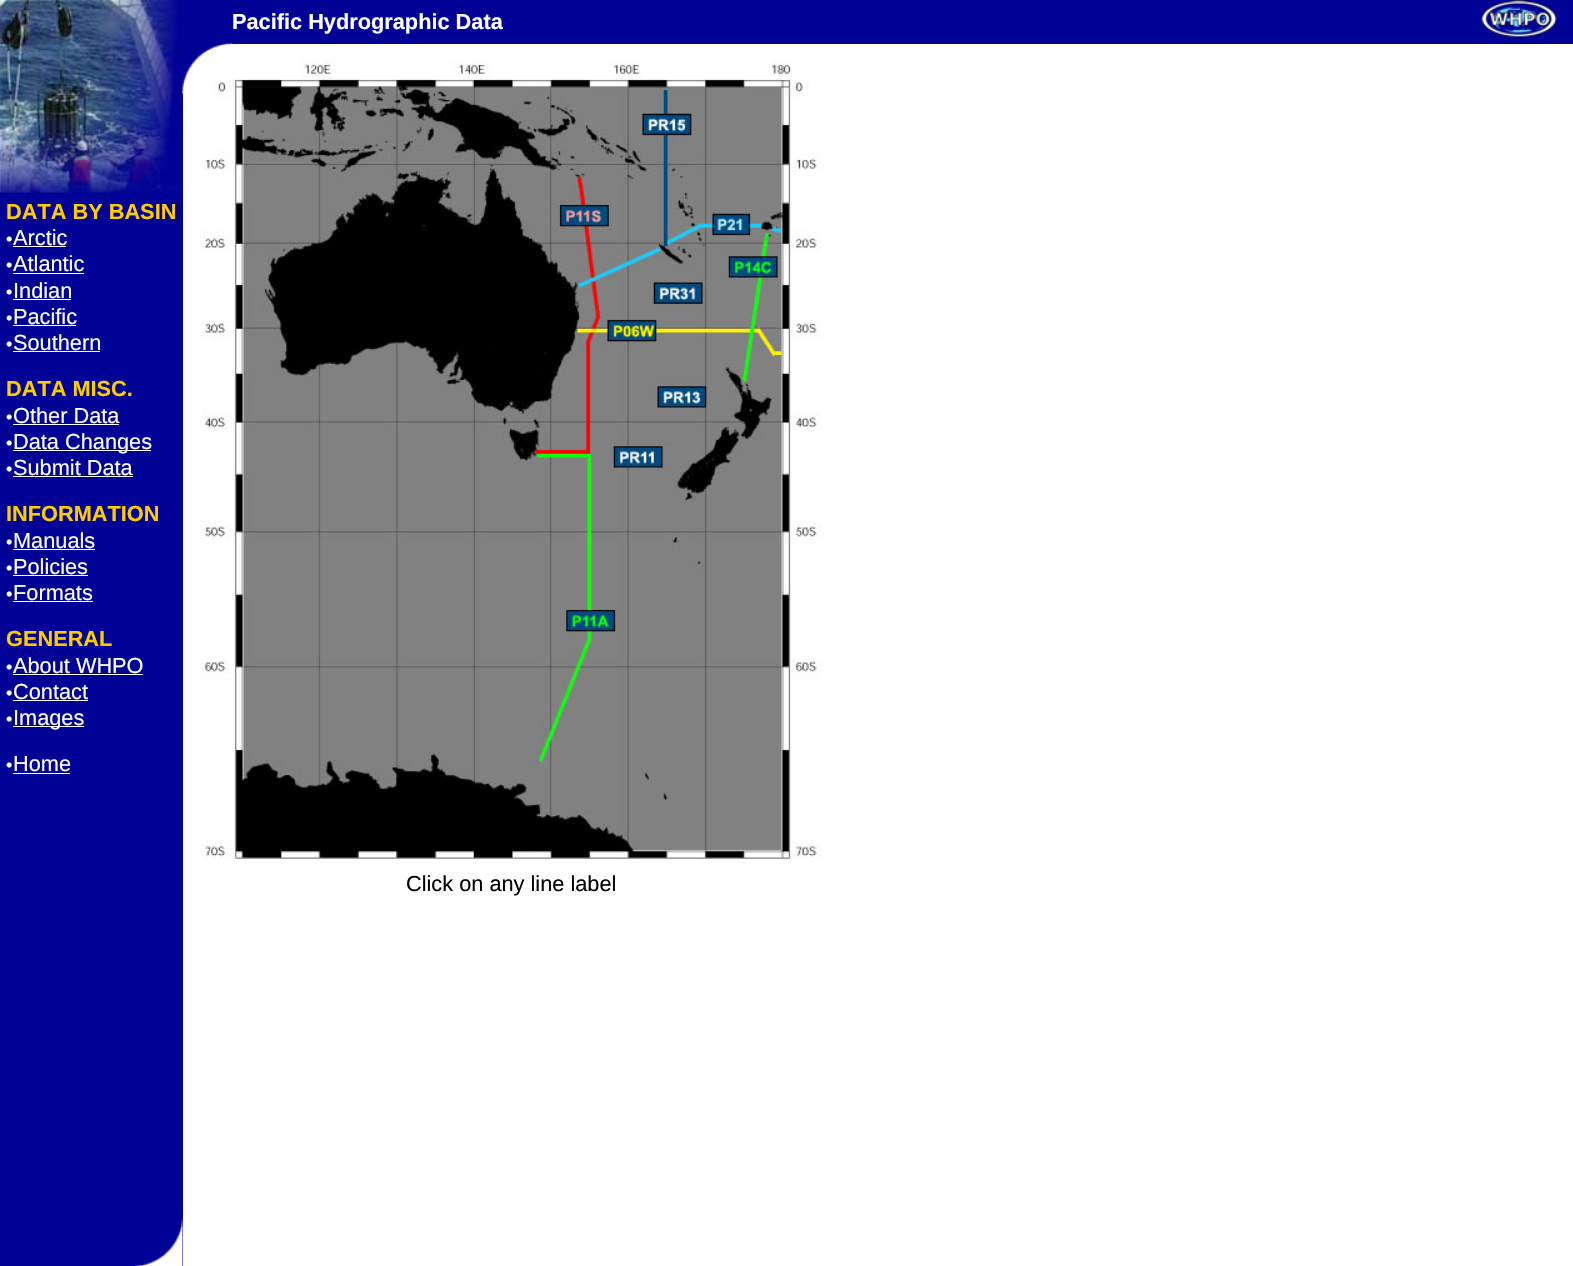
void draw(SkCanvas* canvas) {
    SkPaint paint;
    paint.setAntiAlias(true);
    canvas->clear(0xFFFFFFFF);
    paint.setColor(0xFF000295);
    canvas->drawRect(SkRect::MakeXYWH(0, 0, 183, 1266), paint);
    canvas->drawImageRect(SkImages::DeferredFromEncodedData(SkData::MakeFromFileName("img1.png")), SkRect::MakeXYWH(0, 0, 180, 193), SkSamplingOptions());
    SkFont font1(fontMgr->matchFamilyStyle("Liberation Sans", SkFontStyle::Bold()), 21.75f);
    font1.setSubpixel(true);
    paint.setColor(0xFFFFCC00);
    canvas->drawString("DATA BY BASIN", 6, 219, font1, paint);
    SkFont font2(fontMgr->matchFamilyStyle("Liberation Sans", SkFontStyle::Normal()), 18);
    font2.setSubpixel(true);
    paint.setColor(0xFFFFFFFF);
    canvas->drawString("•", 6, 245, font2, paint);
    SkFont font3(fontMgr->matchFamilyStyle("Liberation Sans", SkFontStyle::Normal()), 21.75f);
    font3.setSubpixel(true);
    canvas->drawString("Arctic", 13, 245, font3, paint);
    canvas->drawRect(SkRect::MakeXYWH(13, 246, 53, 1), paint);
    canvas->drawString("•", 6, 271, font2, paint);
    canvas->drawString("Atlantic", 13, 271, font3, paint);
    canvas->drawRect(SkRect::MakeXYWH(13, 273, 71, 1), paint);
    canvas->drawString("•", 6, 298, font2, paint);
    canvas->drawString("Indian", 13, 298, font3, paint);
    canvas->drawRect(SkRect::MakeXYWH(13, 299, 58, 1), paint);
    canvas->drawString("•", 6, 324, font2, paint);
    canvas->drawString("Pacific", 13, 324, font3, paint);
    canvas->drawRect(SkRect::MakeXYWH(13, 325, 63, 1), paint);
    canvas->drawString("•", 6, 350, font2, paint);
    canvas->drawString("Southern", 13, 350, font3, paint);
    canvas->drawRect(SkRect::MakeXYWH(13, 351, 87, 1), paint);
    paint.setColor(0xFFFFCC00);
    canvas->drawString("DATA MISC.", 6, 396, font1, paint);
    paint.setColor(0xFFFFFFFF);
    canvas->drawString("•", 6, 423, font2, paint);
    canvas->drawString("Other Data", 13, 423, font3, paint);
    canvas->drawRect(SkRect::MakeXYWH(13, 424, 106, 1), paint);
    canvas->drawString("•", 6, 449, font2, paint);
    canvas->drawRect(SkRect::MakeXYWH(13, 450, 138, 1), paint);
    canvas->drawString("Data Changes", 13, 449, font3, paint);
    canvas->drawString("•", 6, 475, font2, paint);
    canvas->drawString("Submit Data", 13, 475, font3, paint);
    canvas->drawRect(SkRect::MakeXYWH(13, 476, 120, 1), paint);
    paint.setColor(0xFFFFCC00);
    canvas->drawString("INFORMATION", 6, 521, font1, paint);
    paint.setColor(0xFFFFFFFF);
    canvas->drawString("•", 6, 548, font2, paint);
    canvas->drawString("Manuals", 13, 548, font3, paint);
    canvas->drawRect(SkRect::MakeXYWH(13, 549, 82, 1), paint);
    canvas->drawString("•", 6, 574, font2, paint);
    canvas->drawString("Policies", 13, 574, font3, paint);
    canvas->drawRect(SkRect::MakeXYWH(13, 575, 75, 1), paint);
    canvas->drawString("•", 6, 600, font2, paint);
    canvas->drawString("Formats", 13, 600, font3, paint);
    canvas->drawRect(SkRect::MakeXYWH(13, 601, 80, 1), paint);
    paint.setColor(0xFFFFCC00);
    canvas->drawString("GENERAL", 6, 646, font1, paint);
    paint.setColor(0xFFFFFFFF);
    canvas->drawString("•", 6, 673, font2, paint);
    canvas->drawString("About WHPO", 13, 673, font3, paint);
    canvas->drawRect(SkRect::MakeXYWH(13, 674, 130, 1), paint);
    canvas->drawString("•", 6, 699, font2, paint);
    canvas->drawString("Contact", 13, 699, font3, paint);
    canvas->drawRect(SkRect::MakeXYWH(13, 700, 75, 1), paint);
    canvas->drawString("•", 6, 725, font2, paint);
    canvas->drawRect(SkRect::MakeXYWH(13, 726, 71, 1), paint);
    canvas->drawString("Images", 13, 725, font3, paint);
    canvas->drawString("•", 6, 771, font2, paint);
    canvas->drawString("Home", 13, 771, font3, paint);
    canvas->drawRect(SkRect::MakeXYWH(13, 773, 57, 1), paint);
    paint.setColor(0xFF000295);
    canvas->drawRect(SkRect::MakeXYWH(183, 0, 1390, 44), paint);
    paint.setColor(0xFFFFFFFF);
    canvas->drawString("Pacific Hydrographic Data", 232, 29, font1, paint);
    canvas->drawImageRect(SkImages::DeferredFromEncodedData(SkData::MakeFromFileName("img2.png")), SkRect::MakeXYWH(1481, 0, 76, 38), SkSamplingOptions());
    canvas->drawImageRect(SkImages::DeferredFromEncodedData(SkData::MakeFromFileName("img3.png")), SkRect::MakeXYWH(183, 43, 50, 17), SkSamplingOptions());
    canvas->drawImageRect(SkImages::DeferredFromEncodedData(SkData::MakeFromFileName("img4.png")), SkRect::MakeXYWH(182, 60, 15, 34), SkSamplingOptions());
    canvas->drawImageRect(SkImages::DeferredFromEncodedData(SkData::MakeFromFileName("img5.png")), SkRect::MakeXYWH(201, 60, 620, 800), SkSamplingOptions());
    paint.setColor(0xFF000000);
    canvas->drawString("Click on any line label", 406, 891, font3, paint);
    canvas->drawImageRect(SkImages::DeferredFromEncodedData(SkData::MakeFromFileName("img6.png")), SkRect::MakeXYWH(135, 1218, 48, 48), SkSamplingOptions());
}
